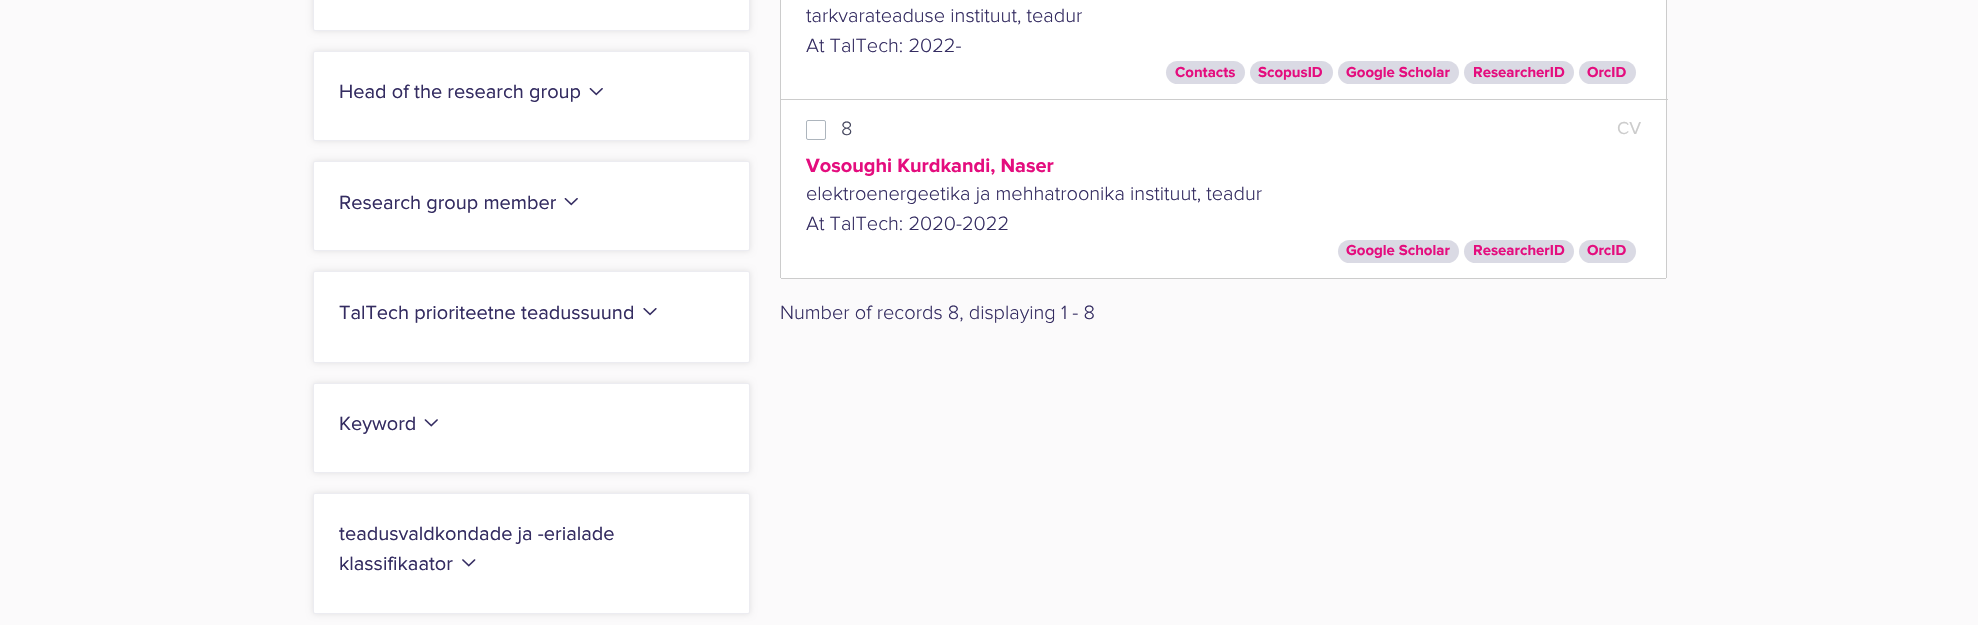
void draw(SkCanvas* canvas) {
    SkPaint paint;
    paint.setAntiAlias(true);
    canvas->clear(0xFFFBFAFB);
    paint.setColor(0x1A000000);
    paint.setMaskFilter(SkMaskFilter::MakeBlur(kNormal_SkBlurStyle, 3));
    canvas->drawRoundRect(SkRect::MakeXYWH(313, -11, 437, 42), 2, 2, paint);
    paint.setMaskFilter(nullptr);
    paint.setColor(0xFFFFFFFF);
    canvas->drawRoundRect(SkRect::MakeXYWH(313.5f, -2.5f, 436, 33), 1.5f, 1.5f, paint);
    paint.setStyle(SkPaint::kStroke_Style);
    paint.setStrokeWidth(1);
    paint.setColor(0xFFECECF1);
    canvas->drawRoundRect(SkRect::MakeXYWH(313.5f, -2.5f, 436, 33), 1.5f, 1.5f, paint);
    paint.setStyle(SkPaint::kFill_Style);
    paint.setColor(0x1A000000);
    paint.setMaskFilter(SkMaskFilter::MakeBlur(kNormal_SkBlurStyle, 3));
    canvas->drawRoundRect(SkRect::MakeXYWH(313, 51, 437, 90), 2, 2, paint);
    paint.setMaskFilter(nullptr);
    paint.setColor(0xFFFFFFFF);
    canvas->drawRoundRect(SkRect::MakeXYWH(313.5f, 51.5f, 436, 89), 1.5f, 1.5f, paint);
    paint.setStyle(SkPaint::kStroke_Style);
    paint.setColor(0xFFECECF1);
    canvas->drawRoundRect(SkRect::MakeXYWH(313.5f, 51.5f, 436, 89), 1.5f, 1.5f, paint);
    SkFont font1(fontMgr->matchFamilyStyle("Proxima Nova", SkFontStyle::Normal()), 20);
    font1.setSubpixel(true);
    paint.setStyle(SkPaint::kFill_Style);
    paint.setColor(0xFF342C61);
    canvas->drawString("Head of the research group", 339, 98, font1, paint);
    canvas->drawImageRect(SkImages::DeferredFromEncodedData(SkData::MakeFromFileName("img1.png")), SkRect::MakeXYWH(589, 88, 14, 8), SkSamplingOptions());
    paint.setColor(0x1A000000);
    paint.setMaskFilter(SkMaskFilter::MakeBlur(kNormal_SkBlurStyle, 3));
    canvas->drawRoundRect(SkRect::MakeXYWH(313, 161, 437, 90), 2, 2, paint);
    paint.setMaskFilter(nullptr);
    paint.setColor(0xFFFFFFFF);
    canvas->drawRoundRect(SkRect::MakeXYWH(313.5f, 161.5f, 436, 89), 1.5f, 1.5f, paint);
    paint.setStyle(SkPaint::kStroke_Style);
    paint.setColor(0xFFECECF1);
    canvas->drawRoundRect(SkRect::MakeXYWH(313.5f, 161.5f, 436, 89), 1.5f, 1.5f, paint);
    paint.setStyle(SkPaint::kFill_Style);
    paint.setColor(0xFF342C61);
    canvas->drawString("Research group member", 339, 209, font1, paint);
    canvas->drawImageRect(SkImages::DeferredFromEncodedData(SkData::MakeFromFileName("img1.png")), SkRect::MakeXYWH(564, 198, 14, 8), SkSamplingOptions());
    paint.setColor(0x1A000000);
    paint.setMaskFilter(SkMaskFilter::MakeBlur(kNormal_SkBlurStyle, 3));
    canvas->drawRoundRect(SkRect::MakeXYWH(313, 271, 437, 92), 2, 2, paint);
    paint.setMaskFilter(nullptr);
    paint.setColor(0xFFFFFFFF);
    canvas->drawRoundRect(SkRect::MakeXYWH(313.5f, 271.5f, 436, 91), 1.5f, 1.5f, paint);
    paint.setStyle(SkPaint::kStroke_Style);
    paint.setColor(0xFFECECF1);
    canvas->drawRoundRect(SkRect::MakeXYWH(313.5f, 271.5f, 436, 91), 1.5f, 1.5f, paint);
    paint.setStyle(SkPaint::kFill_Style);
    paint.setColor(0xFF342C61);
    canvas->drawString("TalTech prioriteetne teadussuund", 339, 319, font1, paint);
    canvas->drawImageRect(SkImages::DeferredFromEncodedData(SkData::MakeFromFileName("img2.png")), SkRect::MakeXYWH(643, 308, 14, 8), SkSamplingOptions());
    paint.setColor(0x1A000000);
    paint.setMaskFilter(SkMaskFilter::MakeBlur(kNormal_SkBlurStyle, 3));
    canvas->drawRoundRect(SkRect::MakeXYWH(313, 383, 437, 90), 2, 2, paint);
    paint.setMaskFilter(nullptr);
    paint.setColor(0xFFFFFFFF);
    canvas->drawRoundRect(SkRect::MakeXYWH(313.5f, 383.5f, 436, 89), 1.5f, 1.5f, paint);
    paint.setStyle(SkPaint::kStroke_Style);
    paint.setColor(0xFFECECF1);
    canvas->drawRoundRect(SkRect::MakeXYWH(313.5f, 383.5f, 436, 89), 1.5f, 1.5f, paint);
    paint.setStyle(SkPaint::kFill_Style);
    paint.setColor(0xFF342C61);
    canvas->drawString("Keyword", 339, 430, font1, paint);
    canvas->drawImageRect(SkImages::DeferredFromEncodedData(SkData::MakeFromFileName("img3.png")), SkRect::MakeXYWH(424, 419, 14, 8), SkSamplingOptions());
    paint.setColor(0x1A000000);
    paint.setMaskFilter(SkMaskFilter::MakeBlur(kNormal_SkBlurStyle, 3));
    canvas->drawRoundRect(SkRect::MakeXYWH(313, 493, 437, 121), 2, 2, paint);
    paint.setMaskFilter(nullptr);
    paint.setColor(0xFFFFFFFF);
    canvas->drawRoundRect(SkRect::MakeXYWH(313.5f, 493.5f, 436, 120), 1.5f, 1.5f, paint);
    paint.setStyle(SkPaint::kStroke_Style);
    paint.setColor(0xFFECECF1);
    canvas->drawRoundRect(SkRect::MakeXYWH(313.5f, 493.5f, 436, 120), 1.5f, 1.5f, paint);
    paint.setStyle(SkPaint::kFill_Style);
    paint.setColor(0xFF342C61);
    canvas->drawString("teadusvaldkondade ja -erialade", 339, 540, font1, paint);
    canvas->drawString("klassifikaator", 339, 570, font1, paint);
    canvas->drawImageRect(SkImages::DeferredFromEncodedData(SkData::MakeFromFileName("img4.png")), SkRect::MakeXYWH(462, 559, 14, 8), SkSamplingOptions());
    paint.setColor(0xFFFFFFFF);
    canvas->drawRect(SkRect::MakeXYWH(781, 0, 885, 99), paint);
    paint.setColor(0xFFCCCCCC);
    canvas->drawRect(SkRect::MakeXYWH(1666, 0, 1, 278), paint);
    canvas->drawRect(SkRect::MakeXYWH(780, 99, 888, 1), paint);
    canvas->drawRect(SkRect::MakeXYWH(780, 0, 1, 278), paint);
    SkFont font2(fontMgr->matchFamilyStyle("Proxima Nova", SkFontStyle(300, SkFontStyle::kNormal_Width, SkFontStyle::kUpright_Slant)), 20);
    font2.setSubpixel(true);
    paint.setColor(0xFF342C61);
    canvas->drawString("tarkvarateaduse instituut, teadur", 806, 22, font2, paint);
    canvas->drawString("At TalTech: 2022-", 806, 52, font2, paint);
    paint.setColor(0xFFDADAE4);
    canvas->drawRoundRect(SkRect::MakeXYWH(1166, 61, 79, 23), 11.5f, 11.5f, paint);
    SkFont font3(fontMgr->matchFamilyStyle("Proxima Nova", SkFontStyle::Bold()), 15);
    font3.setSubpixel(true);
    paint.setColor(0xFFE40D7E);
    canvas->drawString("Contacts", 1175, 77, font3, paint);
    paint.setColor(0xFFDADAE4);
    canvas->drawRoundRect(SkRect::MakeXYWH(1250, 61, 83, 23), 11.5f, 11.5f, paint);
    paint.setColor(0xFFE40D7E);
    canvas->drawString("ScopusID", 1258, 77, font3, paint);
    paint.setColor(0xFFDADAE4);
    canvas->drawRoundRect(SkRect::MakeXYWH(1338, 61, 121, 23), 11.5f, 11.5f, paint);
    paint.setColor(0xFFE40D7E);
    canvas->drawString("Google Scholar", 1346, 77, font3, paint);
    paint.setColor(0xFFDADAE4);
    canvas->drawRoundRect(SkRect::MakeXYWH(1464, 61, 110, 23), 11.5f, 11.5f, paint);
    paint.setColor(0xFFE40D7E);
    canvas->drawString("ResearcherID", 1473, 77, font3, paint);
    paint.setColor(0xFFDADAE4);
    canvas->drawRoundRect(SkRect::MakeXYWH(1579, 61, 57, 23), 11.5f, 11.5f, paint);
    paint.setColor(0xFFE40D7E);
    canvas->drawString("OrcID", 1587, 77, font3, paint);
    paint.setColor(0xFFFFFFFF);
    canvas->drawPath(SkPathBuilder().moveTo(781, 100).lineTo(1666, 100).lineTo(1666, 277.5f).cubicTo(1666, 278, 1666, 278, 1665.5f, 278).lineTo(781.5f, 278).cubicTo(781, 278, 781, 278, 781, 277.5f).close().detach(), paint);
    paint.setColor(0xFFCCCCCC);
    canvas->drawRect(SkRect::MakeXYWH(781, 278, 885, 1), paint);
    paint.setStyle(SkPaint::kStroke_Style);
    paint.setColor(0xFFADB5BD);
    canvas->drawRoundRect(SkRect::MakeXYWH(806.5f, 120.5f, 19, 19), 1.5f, 1.5f, paint);
    paint.setStyle(SkPaint::kFill_Style);
    paint.setColor(0xFF45475E);
    canvas->drawString("8", 841, 135, font2, paint);
    SkFont font4(fontMgr->matchFamilyStyle("Proxima Nova", SkFontStyle::Normal()), 18);
    font4.setSubpixel(true);
    paint.setColor(0xFFCCCCCC);
    canvas->drawString("CV", 1617, 134, font4, paint);
    SkFont font5(fontMgr->matchFamilyStyle("Proxima Nova", SkFontStyle::Bold()), 20);
    font5.setSubpixel(true);
    paint.setColor(0xFFE40D7E);
    canvas->drawString("Vosoughi Kurdkandi, Naser", 806, 172, font5, paint);
    paint.setColor(0xFF342C61);
    canvas->drawString("elektroenergeetika ja mehhatroonika instituut, teadur", 806, 200, font2, paint);
    canvas->drawString("At TalTech: 2020-2022", 806, 230, font2, paint);
    paint.setColor(0xFFDADAE4);
    canvas->drawRoundRect(SkRect::MakeXYWH(1338, 240, 121, 23), 11.5f, 11.5f, paint);
    paint.setColor(0xFFE40D7E);
    canvas->drawString("Google Scholar", 1346, 255, font3, paint);
    paint.setColor(0xFFDADAE4);
    canvas->drawRoundRect(SkRect::MakeXYWH(1464, 240, 110, 23), 11.5f, 11.5f, paint);
    paint.setColor(0xFFE40D7E);
    canvas->drawString("ResearcherID", 1473, 255, font3, paint);
    paint.setColor(0xFFDADAE4);
    canvas->drawRoundRect(SkRect::MakeXYWH(1579, 240, 57, 23), 11.5f, 11.5f, paint);
    paint.setColor(0xFFE40D7E);
    canvas->drawString("OrcID", 1587, 255, font3, paint);
    paint.setColor(0xFF342C61);
    canvas->drawString("Number of records 8, displaying 1 - 8", 780, 319, font2, paint);
}
